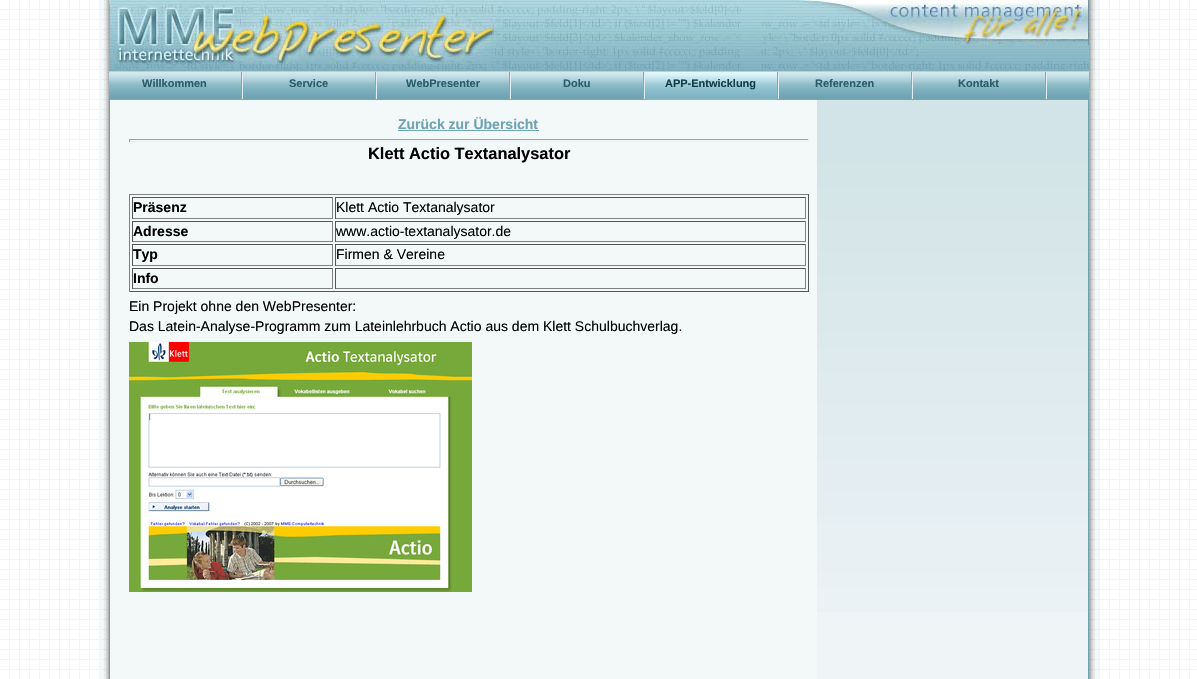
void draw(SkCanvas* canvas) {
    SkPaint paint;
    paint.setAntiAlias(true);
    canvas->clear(0xFFFFFFFF);
    canvas->drawImageRect(SkImages::DeferredFromEncodedData(SkData::MakeFromFileName("img1.png")), SkRect::MakeXYWH(0, 0, 1197, 679), SkSamplingOptions());
    canvas->drawImageRect(SkImages::DeferredFromEncodedData(SkData::MakeFromFileName("img2.png")), SkRect::MakeXYWH(100, 0, 999, 679), SkSamplingOptions());
    canvas->drawImageRect(SkImages::DeferredFromEncodedData(SkData::MakeFromFileName("img3.png")), SkRect::MakeXYWH(109, 0, 980, 71), SkSamplingOptions());
    canvas->drawImageRect(SkImages::DeferredFromEncodedData(SkData::MakeFromFileName("img4.png")), SkRect::MakeXYWH(114, 0, 382, 65), SkSamplingOptions());
    canvas->drawImageRect(SkImages::DeferredFromEncodedData(SkData::MakeFromFileName("img5.png")), SkRect::MakeXYWH(789, 0, 300, 45), SkSamplingOptions());
    canvas->drawImageRect(SkImages::DeferredFromEncodedData(SkData::MakeFromFileName("img6.png")), SkRect::MakeXYWH(109, 71, 980, 29), SkSamplingOptions());
    canvas->drawImageRect(SkImages::DeferredFromEncodedData(SkData::MakeFromFileName("img7.png")), SkRect::MakeXYWH(241, 72, 2, 27), SkSamplingOptions());
    canvas->drawImageRect(SkImages::DeferredFromEncodedData(SkData::MakeFromFileName("img8.png")), SkRect::MakeXYWH(109, 72, 132, 27), SkSamplingOptions());
    SkFont font1(fontMgr->matchFamilyStyle("Liberation Sans", SkFontStyle::Bold()), 11);
    font1.setSubpixel(true);
    paint.setColor(0xFF295B68);
    canvas->drawString("Willkommen", 142, 87, font1, paint);
    canvas->drawImageRect(SkImages::DeferredFromEncodedData(SkData::MakeFromFileName("img7.png")), SkRect::MakeXYWH(375, 72, 2, 27), SkSamplingOptions());
    canvas->drawImageRect(SkImages::DeferredFromEncodedData(SkData::MakeFromFileName("img8.png")), SkRect::MakeXYWH(243, 72, 132, 27), SkSamplingOptions());
    canvas->drawString("Service", 289, 87, font1, paint);
    canvas->drawImageRect(SkImages::DeferredFromEncodedData(SkData::MakeFromFileName("img7.png")), SkRect::MakeXYWH(509, 72, 2, 27), SkSamplingOptions());
    canvas->drawImageRect(SkImages::DeferredFromEncodedData(SkData::MakeFromFileName("img8.png")), SkRect::MakeXYWH(377, 72, 132, 27), SkSamplingOptions());
    canvas->drawString("WebPresenter", 406, 87, font1, paint);
    canvas->drawImageRect(SkImages::DeferredFromEncodedData(SkData::MakeFromFileName("img7.png")), SkRect::MakeXYWH(643, 72, 2, 27), SkSamplingOptions());
    canvas->drawImageRect(SkImages::DeferredFromEncodedData(SkData::MakeFromFileName("img8.png")), SkRect::MakeXYWH(511, 72, 132, 27), SkSamplingOptions());
    canvas->drawString("Doku", 563, 87, font1, paint);
    canvas->drawImageRect(SkImages::DeferredFromEncodedData(SkData::MakeFromFileName("img7.png")), SkRect::MakeXYWH(777, 72, 2, 27), SkSamplingOptions());
    canvas->drawImageRect(SkImages::DeferredFromEncodedData(SkData::MakeFromFileName("img9.png")), SkRect::MakeXYWH(645, 72, 132, 28), SkSamplingOptions());
    paint.setColor(0xFF103D48);
    canvas->drawString("APP-Entwicklung", 665, 87, font1, paint);
    canvas->drawImageRect(SkImages::DeferredFromEncodedData(SkData::MakeFromFileName("img7.png")), SkRect::MakeXYWH(911, 72, 2, 27), SkSamplingOptions());
    canvas->drawImageRect(SkImages::DeferredFromEncodedData(SkData::MakeFromFileName("img8.png")), SkRect::MakeXYWH(779, 72, 132, 27), SkSamplingOptions());
    paint.setColor(0xFF295B68);
    canvas->drawString("Referenzen", 815, 87, font1, paint);
    canvas->drawImageRect(SkImages::DeferredFromEncodedData(SkData::MakeFromFileName("img7.png")), SkRect::MakeXYWH(1045, 72, 2, 27), SkSamplingOptions());
    canvas->drawImageRect(SkImages::DeferredFromEncodedData(SkData::MakeFromFileName("img8.png")), SkRect::MakeXYWH(913, 72, 132, 27), SkSamplingOptions());
    canvas->drawString("Kontakt", 958, 87, font1, paint);
    SkFont font2(fontMgr->matchFamilyStyle("Liberation Sans", SkFontStyle::Bold()), 14);
    font2.setSubpixel(true);
    paint.setColor(0xFF6EA3B2);
    canvas->drawString("Zurück zur Übersicht", 398, 129, font2, paint);
    canvas->drawRect(SkRect::MakeXYWH(398, 130, 141, 1), paint);
    paint.setColor(0xFF9F9F9F);
    canvas->drawRect(SkRect::MakeXYWH(129, 139, 680, 1), paint);
    paint.setColor(0xFFEEEEEE);
    canvas->drawRect(SkRect::MakeXYWH(808, 139, 1, 3), paint);
    canvas->drawRect(SkRect::MakeXYWH(129, 141, 680, 1), paint);
    paint.setColor(0xFF9F9F9F);
    canvas->drawRect(SkRect::MakeXYWH(129, 139, 1, 3), paint);
    SkFont font3(fontMgr->matchFamilyStyle("Liberation Sans", SkFontStyle::Bold()), 16.4f);
    font3.setSubpixel(true);
    paint.setColor(0xFF000000);
    canvas->drawString("Klett Actio Textanalysator", 368, 159, font3, paint);
    paint.setColor(0xFF808080);
    canvas->drawRect(SkRect::MakeXYWH(129, 194, 680, 1), paint);
    paint.setColor(0xFF555555);
    canvas->drawRect(SkRect::MakeXYWH(808, 194, 1, 98), paint);
    canvas->drawRect(SkRect::MakeXYWH(129, 291, 680, 1), paint);
    paint.setColor(0xFF808080);
    canvas->drawRect(SkRect::MakeXYWH(129, 194, 1, 98), paint);
    paint.setColor(0xFF555555);
    canvas->drawRect(SkRect::MakeXYWH(132, 197, 201, 1), paint);
    paint.setColor(0xFF808080);
    canvas->drawRect(SkRect::MakeXYWH(332, 197, 1, 22), paint);
    canvas->drawRect(SkRect::MakeXYWH(132, 218, 201, 1), paint);
    paint.setColor(0xFF555555);
    canvas->drawRect(SkRect::MakeXYWH(132, 197, 1, 22), paint);
    paint.setColor(0xFF000000);
    canvas->drawString("Präsenz", 133, 212, font2, paint);
    paint.setColor(0xFF555555);
    canvas->drawRect(SkRect::MakeXYWH(335, 197, 471, 1), paint);
    paint.setColor(0xFF808080);
    canvas->drawRect(SkRect::MakeXYWH(805, 197, 1, 22), paint);
    canvas->drawRect(SkRect::MakeXYWH(335, 218, 471, 1), paint);
    paint.setColor(0xFF555555);
    canvas->drawRect(SkRect::MakeXYWH(335, 197, 1, 22), paint);
    SkFont font4(fontMgr->matchFamilyStyle("Liberation Sans", SkFontStyle::Normal()), 14);
    font4.setSubpixel(true);
    paint.setColor(0xFF000000);
    canvas->drawString("Klett Actio Textanalysator", 336, 212, font4, paint);
    paint.setColor(0xFF555555);
    canvas->drawRect(SkRect::MakeXYWH(132, 221, 201, 1), paint);
    paint.setColor(0xFF808080);
    canvas->drawRect(SkRect::MakeXYWH(332, 221, 1, 21), paint);
    canvas->drawRect(SkRect::MakeXYWH(132, 241, 201, 1), paint);
    paint.setColor(0xFF555555);
    canvas->drawRect(SkRect::MakeXYWH(132, 221, 1, 21), paint);
    paint.setColor(0xFF000000);
    canvas->drawString("Adresse", 133, 236, font2, paint);
    paint.setColor(0xFF555555);
    canvas->drawRect(SkRect::MakeXYWH(335, 221, 471, 1), paint);
    paint.setColor(0xFF808080);
    canvas->drawRect(SkRect::MakeXYWH(805, 221, 1, 21), paint);
    canvas->drawRect(SkRect::MakeXYWH(335, 241, 471, 1), paint);
    paint.setColor(0xFF555555);
    canvas->drawRect(SkRect::MakeXYWH(335, 221, 1, 21), paint);
    paint.setColor(0xFF000000);
    canvas->drawString("www.actio-textanalysator.de", 336, 236, font4, paint);
    paint.setColor(0xFF555555);
    canvas->drawRect(SkRect::MakeXYWH(132, 244, 201, 1), paint);
    paint.setColor(0xFF808080);
    canvas->drawRect(SkRect::MakeXYWH(332, 244, 1, 22), paint);
    canvas->drawRect(SkRect::MakeXYWH(132, 265, 201, 1), paint);
    paint.setColor(0xFF555555);
    canvas->drawRect(SkRect::MakeXYWH(132, 244, 1, 22), paint);
    paint.setColor(0xFF000000);
    canvas->drawString("Typ", 133, 259, font2, paint);
    paint.setColor(0xFF555555);
    canvas->drawRect(SkRect::MakeXYWH(335, 244, 471, 1), paint);
    paint.setColor(0xFF808080);
    canvas->drawRect(SkRect::MakeXYWH(805, 244, 1, 22), paint);
    canvas->drawRect(SkRect::MakeXYWH(335, 265, 471, 1), paint);
    paint.setColor(0xFF555555);
    canvas->drawRect(SkRect::MakeXYWH(335, 244, 1, 22), paint);
    paint.setColor(0xFF000000);
    canvas->drawString("Firmen & Vereine", 336, 259, font4, paint);
    paint.setColor(0xFF555555);
    canvas->drawRect(SkRect::MakeXYWH(132, 268, 201, 1), paint);
    paint.setColor(0xFF808080);
    canvas->drawRect(SkRect::MakeXYWH(332, 268, 1, 21), paint);
    canvas->drawRect(SkRect::MakeXYWH(132, 288, 201, 1), paint);
    paint.setColor(0xFF555555);
    canvas->drawRect(SkRect::MakeXYWH(132, 268, 1, 21), paint);
    paint.setColor(0xFF000000);
    canvas->drawString("Info", 133, 283, font2, paint);
    paint.setColor(0xFF555555);
    canvas->drawRect(SkRect::MakeXYWH(335, 268, 471, 1), paint);
    paint.setColor(0xFF808080);
    canvas->drawRect(SkRect::MakeXYWH(805, 268, 1, 21), paint);
    canvas->drawRect(SkRect::MakeXYWH(335, 288, 471, 1), paint);
    paint.setColor(0xFF555555);
    canvas->drawRect(SkRect::MakeXYWH(335, 268, 1, 21), paint);
    paint.setColor(0xFF000000);
    canvas->drawString("Ein Projekt ohne den WebPresenter:", 129, 311, font4, paint);
    canvas->drawString("Das Latein-Analyse-Programm zum Lateinlehrbuch Actio aus dem Klett Schulbuchverlag.", 129, 331, font4, paint);
    canvas->drawImageRect(SkImages::DeferredFromEncodedData(SkData::MakeFromFileName("img10.png")), SkRect::MakeXYWH(129, 342, 343, 250), SkSamplingOptions());
    paint.setColor(0xFFEFF5F7);
    canvas->drawRect(SkRect::MakeXYWH(817, 612, 271, 67), paint);
    canvas->drawImageRect(SkImages::DeferredFromEncodedData(SkData::MakeFromFileName("img11.png")), SkRect::MakeXYWH(817, 100, 271, 512), SkSamplingOptions());
}
